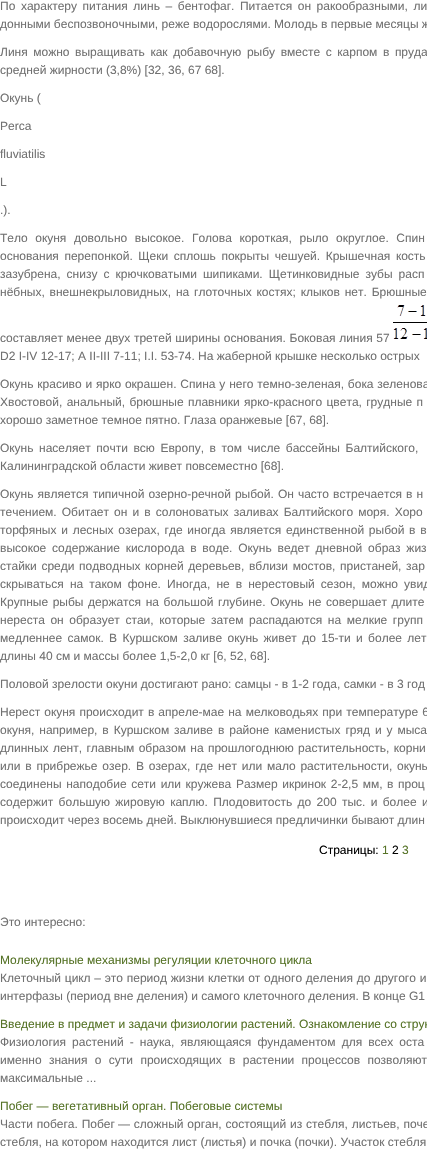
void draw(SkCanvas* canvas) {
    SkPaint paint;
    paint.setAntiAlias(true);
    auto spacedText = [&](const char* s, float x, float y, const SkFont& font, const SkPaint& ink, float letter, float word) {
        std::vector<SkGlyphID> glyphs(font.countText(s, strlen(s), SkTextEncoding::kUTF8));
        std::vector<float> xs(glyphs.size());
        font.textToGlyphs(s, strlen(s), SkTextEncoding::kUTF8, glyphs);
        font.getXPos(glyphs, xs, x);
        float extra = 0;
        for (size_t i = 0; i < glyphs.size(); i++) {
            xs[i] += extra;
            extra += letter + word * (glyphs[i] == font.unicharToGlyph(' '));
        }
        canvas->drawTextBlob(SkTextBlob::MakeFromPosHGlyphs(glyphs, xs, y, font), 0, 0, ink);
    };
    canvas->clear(0xFFFFFFFF);
    SkFont font1(fontMgr->matchFamilyStyle("Liberation Sans", SkFontStyle::Normal()), 12);
    font1.setSubpixel(true);
    paint.setColor(0xFF717171);
    spacedText("По характеру питания линь – бентофаг. Питается он ракообразными, ли", 0, 10, font1, paint, 0, 2.25f);
    canvas->drawString("донными беспозвоночными, реже водорослями. Молодь в первые месяцы ж", 0, 28, font1, paint);
    spacedText("Линя можно выращивать как добавочную рыбу вместе с карпом в пруда", 0, 56, font1, paint, 0, 2.25f);
    canvas->drawString("средней жирности (3,8%) [32, 36, 67 68].", 0, 74, font1, paint);
    canvas->drawString("Окунь (", 0, 102, font1, paint);
    canvas->drawString("Perca", 0, 130, font1, paint);
    canvas->drawString("fluviatilis", 0, 158, font1, paint);
    canvas->drawString("L", 0, 186, font1, paint);
    canvas->drawString(".).", 0, 214, font1, paint);
    spacedText("Тело окуня довольно высокое. Голова короткая, рыло округлое. Спин", 0, 242, font1, paint, 0, 4.25f);
    spacedText("основания перепонкой. Щеки сплошь покрыты чешуей. Крышечная кость", 0, 260, font1, paint, 0, 2.25f);
    spacedText("зазубрена, снизу с крючковатыми шипиками. Щетинковидные зубы расп", 0, 278, font1, paint, 0, 2.75f);
    spacedText("нёбных, внешнекрыловидных, на глоточных костях; клыков нет. Брюшные", 0, 296, font1, paint, 0, 1.5f);
    spacedText("составляет менее двух третей ширины основания. Боковая линия 57", 0, 342, font1, paint, 0, 0.25f);
    canvas->drawImageRect(SkImages::DeferredFromEncodedData(SkData::MakeFromFileName("img1.png")), SkRect::MakeXYWH(393, 305, 34, 34), SkSamplingOptions());
    canvas->drawString("D2 I-IV 12-17; A II-III 7-11; I.I. 53-74. На жаберной крышке несколько острых", 0, 360, font1, paint);
    spacedText("Окунь красиво и ярко окрашен. Спина у него темно-зеленая, бока зеленова", 0, 388, font1, paint, 0, 0.5f);
    spacedText("Хвостовой, анальный, брюшные плавники ярко-красного цвета, грудные п", 0, 406, font1, paint, 0, 1);
    canvas->drawString("хорошо заметное темное пятно. Глаза оранжевые [67, 68].", 0, 424, font1, paint);
    spacedText("Окунь населяет почти всю Европу, в том числе бассейны Балтийского,", 0, 452, font1, paint, 0, 2.25f);
    canvas->drawString("Калининградской области живет повсеместно [68].", 0, 470, font1, paint);
    spacedText("Окунь является типичной озерно-речной рыбой. Он часто встречается в н", 0, 498, font1, paint, 0, 0.75f);
    spacedText("течением. Обитает он и в солоноватых заливах Балтийского моря. Хоро", 0, 516, font1, paint, 0, 1.75f);
    spacedText("торфяных и лесных озерах, где иногда является единственной рыбой в в", 0, 534, font1, paint, 0, 1.4f);
    spacedText("высокое содержание кислорода в воде. Окунь ведет дневной образ жиз", 0, 552, font1, paint, 0, 2.5f);
    spacedText("стайки среди подводных корней деревьев, вблизи мостов, пристаней, зар", 0, 570, font1, paint, 0, 1.25f);
    spacedText("скрываться на таком фоне. Иногда, не в нерестовый сезон, можно увид", 0, 588, font1, paint, 0, 2.75f);
    spacedText("Крупные рыбы держатся на большой глубине. Окунь не совершает длите", 0, 606, font1, paint, 0, 1.25f);
    spacedText("нереста он образует стаи, которые затем распадаются на мелкие групп", 0, 624, font1, paint, 0, 2.25f);
    spacedText("медленнее самок. В Куршском заливе окунь живет до 15-ти и более лет", 0, 642, font1, paint, 0, 2);
    canvas->drawString("длины 40 см и массы более 1,5-2,0 кг [6, 52, 68].", 0, 660, font1, paint);
    canvas->drawString("Половой зрелости окуни достигают рано: самцы - в 1-2 года, самки - в 3 год", 0, 688, font1, paint);
    spacedText("Нерест окуня происходит в апреле-мае на мелководьях при температуре 6", 0, 716, font1, paint, 0, 0.75f);
    spacedText("окуня, например, в Куршском заливе в районе каменистых гряд и у мыса", 0, 734, font1, paint, 0, 1.6f);
    spacedText("длинных лент, главным образом на прошлогоднюю растительность, корни", 0, 752, font1, paint, 0, 1);
    spacedText("или в прибрежье озер. В озерах, где нет или мало растительности, окунь", 0, 770, font1, paint, 0, 1.5f);
    spacedText("соединены наподобие сети или кружева Размер икринок 2-2,5 мм, в проц", 0, 788, font1, paint, 0, 1.25f);
    spacedText("содержит большую жировую каплю. Плодовитость до 200 тыс. и более и", 0, 806, font1, paint, 0, 2);
    canvas->drawString("происходит через восемь дней. Выклюнувшиеся предличинки бывают длин", 0, 824, font1, paint);
    paint.setColor(0xFF000000);
    canvas->drawString("Страницы:", 319, 854, font1, paint);
    paint.setColor(0xFF567327);
    canvas->drawString("1", 382, 854, font1, paint);
    paint.setColor(0xFF000000);
    canvas->drawString("2", 392, 854, font1, paint);
    paint.setColor(0xFF567327);
    canvas->drawString("3", 402, 854, font1, paint);
    paint.setColor(0xFF717171);
    canvas->drawString("Это интересно:", 0, 926, font1, paint);
    paint.setColor(0xFF567327);
    canvas->drawString("Молекулярные механизмы регуляции клеточного цикла", 0, 964, font1, paint);
    paint.setColor(0xFF717171);
    spacedText("Клеточный цикл – это период жизни клетки от одного деления до другого и", 0, 982, font1, paint, 0, 0.4f);
    canvas->drawString("интерфазы (период вне деления) и самого клеточного деления. В конце G1", 0, 1000, font1, paint);
    paint.setColor(0xFF567327);
    canvas->drawString("Введение в предмет и задачи физиологии растений. Ознакомление со струк", 0, 1028, font1, paint);
    paint.setColor(0xFF717171);
    spacedText("Физиология растений - наука, являющаяся фундаментом для всех оста", 0, 1046, font1, paint, 0, 2.75f);
    spacedText("именно знания о сути происходящих в растении процессов позволяют", 0, 1064, font1, paint, 0, 4);
    canvas->drawString("максимальные ...", 0, 1082, font1, paint);
    paint.setColor(0xFF567327);
    canvas->drawString("Побег — вегетативный орган. Побеговые системы", 0, 1110, font1, paint);
    paint.setColor(0xFF717171);
    spacedText("Части побега. Побег", 0, 1128, font1, paint, 0, 0.5f);
    spacedText("— сложный орган, состоящий из стебля, листьев, поче", 118, 1128, font1, paint, 0, 0.5f);
    canvas->drawString("стебля, на котором находится лист (листья) и почка (почки). Участок стебля", 0, 1146, font1, paint);
}
